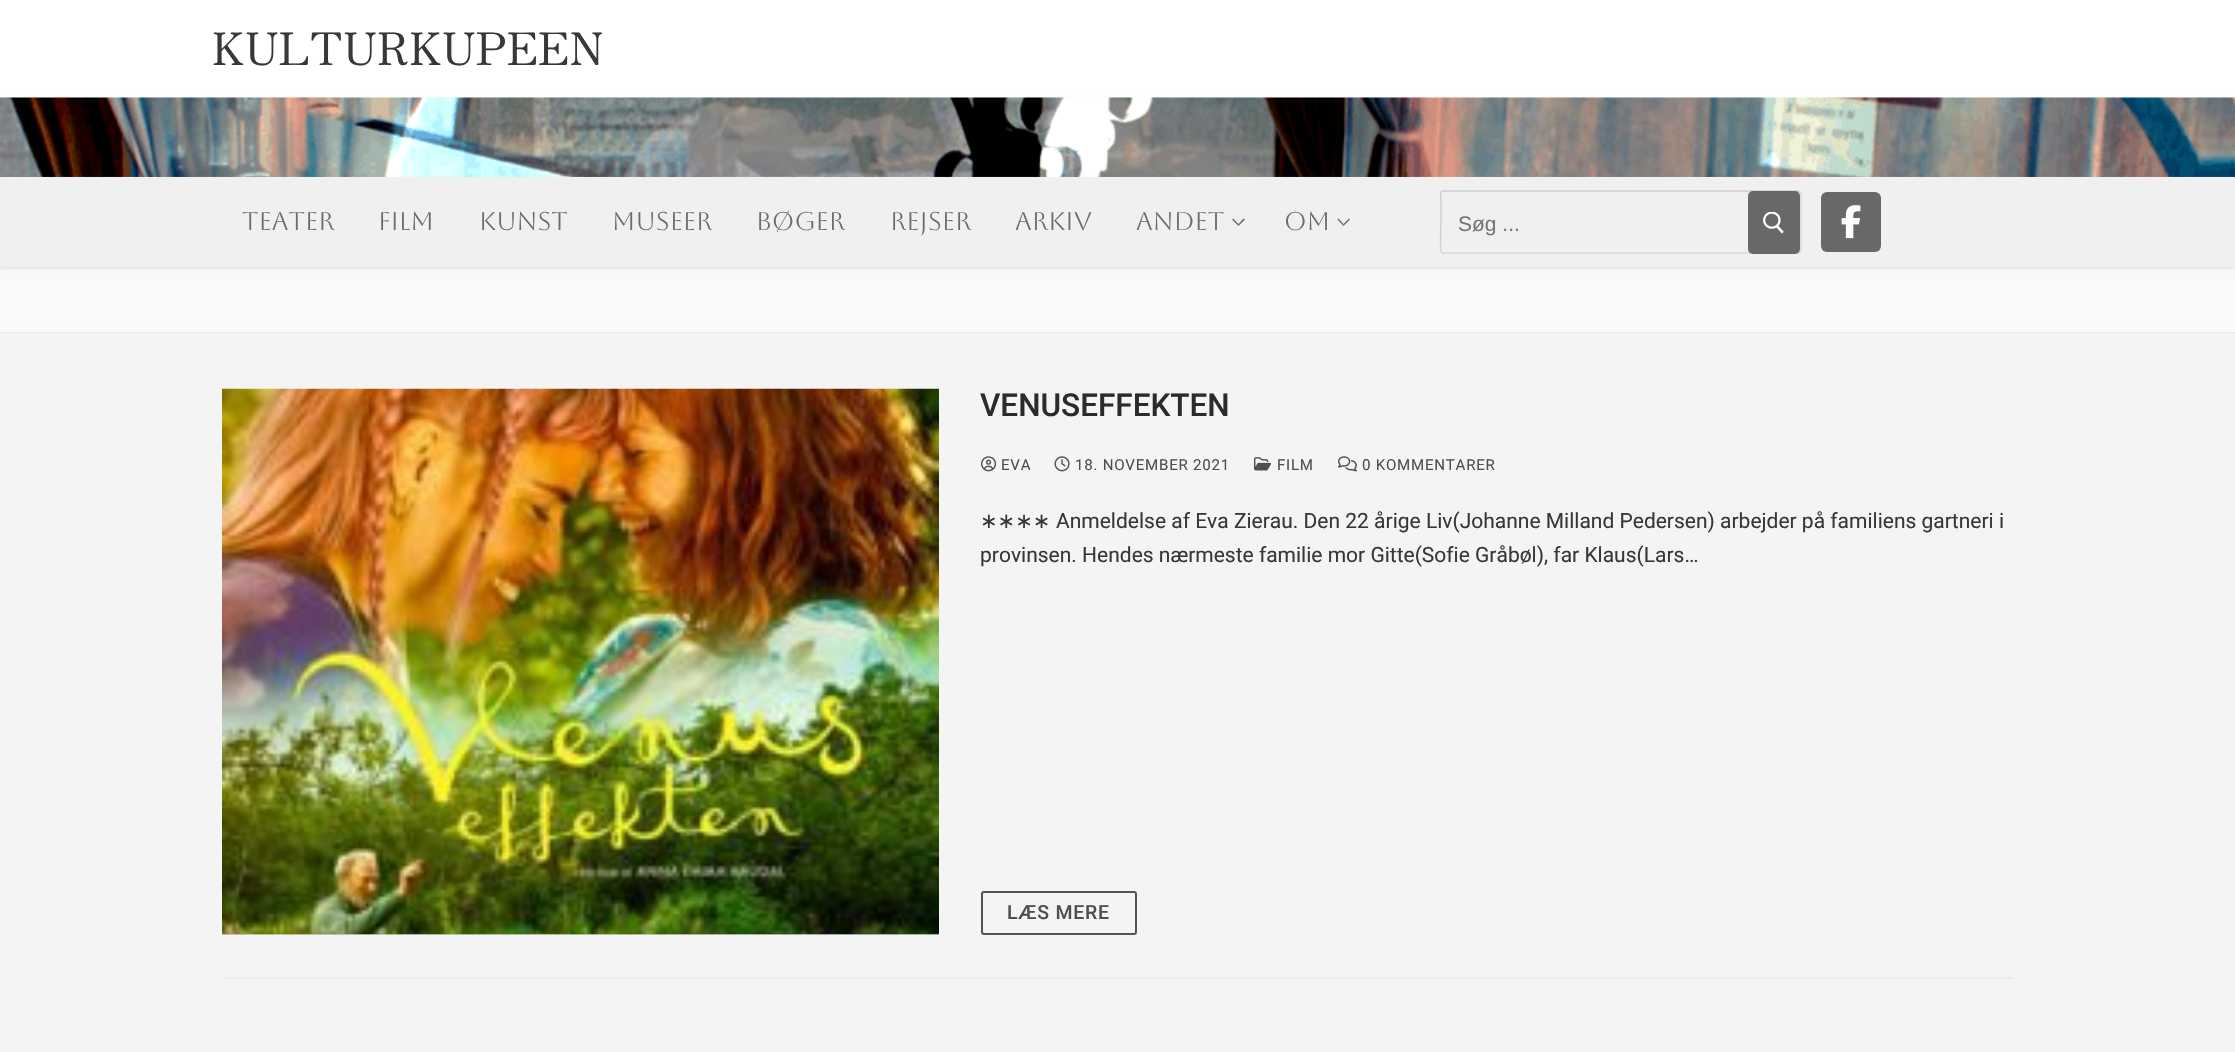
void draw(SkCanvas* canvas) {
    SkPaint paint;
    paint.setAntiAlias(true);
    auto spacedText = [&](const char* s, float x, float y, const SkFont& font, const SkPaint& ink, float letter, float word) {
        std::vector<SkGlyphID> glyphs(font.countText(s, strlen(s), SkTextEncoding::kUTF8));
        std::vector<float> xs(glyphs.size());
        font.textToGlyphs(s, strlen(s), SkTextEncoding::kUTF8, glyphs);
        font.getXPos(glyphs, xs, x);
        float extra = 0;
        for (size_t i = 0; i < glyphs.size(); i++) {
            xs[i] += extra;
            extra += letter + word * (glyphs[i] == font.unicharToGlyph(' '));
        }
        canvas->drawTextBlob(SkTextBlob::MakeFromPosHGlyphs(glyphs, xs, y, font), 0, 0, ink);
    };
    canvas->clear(0xFFFFFFFF);
    SkFont font1(fontMgr->matchFamilyStyle("Zen Old Mincho", SkFontStyle::Normal()), 44.75f);
    font1.setSubpixel(true);
    paint.setColor(0xFF383838);
    spacedText("KULTURKUPEEN", 212, 65, font1, paint, 0.6f, 0);
    paint.setColor(0xFFE1E5EA);
    paint.setMaskFilter(SkMaskFilter::MakeBlur(kNormal_SkBlurStyle, 1.5f));
    canvas->drawRect(SkRect::MakeXYWH(0, 99, 2235, 80), paint);
    paint.setMaskFilter(nullptr);
    canvas->drawImageRect(SkImages::DeferredFromEncodedData(SkData::MakeFromFileName("img1.png")), SkRect::MakeXYWH(0, 97, 2235, 80), SkSamplingOptions());
    paint.setColor(0xFFF9F9F9);
    canvas->drawRect(SkRect::MakeXYWH(0, 267, 2235, 65), paint);
    paint.setColor(0xFFE1E5EA);
    paint.setMaskFilter(SkMaskFilter::MakeBlur(kNormal_SkBlurStyle, 1.5f));
    canvas->drawRect(SkRect::MakeXYWH(0, 179, 2235, 90), paint);
    paint.setMaskFilter(nullptr);
    paint.setColor(0xFFF0F0F0);
    canvas->drawRect(SkRect::MakeXYWH(0, 177, 2235, 90), paint);
    SkFont font2(fontMgr->matchFamilyStyle("Aboreto", SkFontStyle::Normal()), 25.5f);
    font2.setSubpixel(true);
    paint.setColor(0xFF6C6C6C);
    canvas->drawString("TEATER", 242, 230, font2, paint);
    canvas->drawString("FILM", 378, 230, font2, paint);
    canvas->drawString("KUNST", 479, 230, font2, paint);
    canvas->drawString("MUSEER", 612, 230, font2, paint);
    canvas->drawString("BØGER", 756, 230, font2, paint);
    canvas->drawString("REJSER", 890, 230, font2, paint);
    canvas->drawString("ARKIV", 1015, 230, font2, paint);
    canvas->drawString("ANDET", 1136, 230, font2, paint);
    canvas->drawPath(SkPathBuilder().moveTo(1238.5f, 226).lineTo(1232, 219.5f).lineTo(1233, 218.5f).lineTo(1238.5f, 224).close().detach(), paint);
    paint.setColor(0x8C000000);
    canvas->drawPath(SkPathBuilder().moveTo(1245, 219.5f).lineTo(1238.5f, 226).lineTo(1238.5f, 224).lineTo(1243.5f, 218.5f).close().detach(), paint);
    paint.setColor(0xFF6C6C6C);
    canvas->drawString("OM", 1284, 230, font2, paint);
    canvas->drawPath(SkPathBuilder().moveTo(1343.5f, 226).lineTo(1337.5f, 219.5f).lineTo(1338.5f, 218.5f).lineTo(1343.5f, 224).close().detach(), paint);
    paint.setColor(0x8C000000);
    canvas->drawPath(SkPathBuilder().moveTo(1350, 219.5f).lineTo(1343.5f, 226).lineTo(1343.5f, 224).lineTo(1349, 218.5f).close().detach(), paint);
    paint.setStyle(SkPaint::kStroke_Style);
    paint.setStrokeWidth(1.5f);
    paint.setColor(0xFFD9D9D9);
    canvas->drawPath(SkPathBuilder().moveTo(1800, 192).cubicTo(1802, 193.5f, 1801, 218, 1801, 222).lineTo(1801, 241).cubicTo(1801, 245.5f, 1802.5f, 252.5f, 1798.5f, 253).lineTo(1443, 253).lineTo(1441.5f, 252).detach(), paint);
    paint.setColor(0x33555555);
    canvas->drawPath(SkPathBuilder().moveTo(1441.5f, 252).cubicTo(1439.5f, 250.5f, 1441, 226, 1441, 222).lineTo(1441, 203).cubicTo(1441, 198.5f, 1439, 191.5f, 1443, 191).lineTo(1798.5f, 191).lineTo(1800, 192).detach(), paint);
    SkFont font3(fontMgr->matchFamilyStyle("Liberation Sans", SkFontStyle::Normal()), 21);
    font3.setSubpixel(true);
    paint.setStyle(SkPaint::kFill_Style);
    paint.setColor(0xFF757575);
    canvas->drawString("Søg ...", 1458, 231, font3, paint);
    paint.setColor(0xFF686868);
    canvas->drawRoundRect(SkRect::MakeXYWH(1748, 191, 52, 63), 5, 5, paint);
    canvas->drawImageRect(SkImages::DeferredFromEncodedData(SkData::MakeFromFileName("img2.png")), SkRect::MakeXYWH(1763, 212, 21, 22), SkSamplingOptions());
    canvas->drawRoundRect(SkRect::MakeXYWH(1821, 192, 60, 60), 6, 6, paint);
    canvas->drawImageRect(SkImages::DeferredFromEncodedData(SkData::MakeFromFileName("img3.png")), SkRect::MakeXYWH(1841, 205, 20, 34), SkSamplingOptions());
    paint.setColor(0xFFEAECEE);
    canvas->drawRect(SkRect::MakeXYWH(0, 332, 2235, 1), paint);
    paint.setColor(0xFFF4F4F4);
    canvas->drawRect(SkRect::MakeXYWH(0, 333, 2235, 719), paint);
    paint.setColor(0xFFEAECEE);
    canvas->drawRect(SkRect::MakeXYWH(222, 977, 1791, 2), paint);
    paint.setColor(0xFFD5D5D5);
    canvas->drawRect(SkRect::MakeXYWH(222, 934, 717, 1), paint);
    canvas->drawImageRect(SkImages::DeferredFromEncodedData(SkData::MakeFromFileName("img4.png")), SkRect::MakeXYWH(222, 388, 717, 547), SkSamplingOptions());
    SkFont font4(fontMgr->matchFamilyStyle("Roboto", SkFontStyle(500, SkFontStyle::kNormal_Width, SkFontStyle::kUpright_Slant)), 31.5f);
    font4.setSubpixel(true);
    paint.setColor(0xFF2B2B2B);
    canvas->drawString("VENUSEFFEKTEN", 980, 416, font4, paint);
    canvas->drawImageRect(SkImages::DeferredFromEncodedData(SkData::MakeFromFileName("img5.png")), SkRect::MakeXYWH(981, 456, 16, 16), SkSamplingOptions());
    SkFont font5(fontMgr->matchFamilyStyle("Roboto", SkFontStyle::Normal()), 15.1f);
    font5.setSubpixel(true);
    paint.setColor(0xFF4F4F4F);
    spacedText("EVA", 1001, 470, font5, paint, 0.75f, 0);
    canvas->drawImageRect(SkImages::DeferredFromEncodedData(SkData::MakeFromFileName("img6.png")), SkRect::MakeXYWH(1054, 456, 16, 16), SkSamplingOptions());
    spacedText("18. NOVEMBER 2021", 1075, 470, font5, paint, 0.75f, 0);
    canvas->drawImageRect(SkImages::DeferredFromEncodedData(SkData::MakeFromFileName("img7.png")), SkRect::MakeXYWH(1254, 457, 17, 14), SkSamplingOptions());
    spacedText("FILM", 1277, 470, font5, paint, 0.75f, 0);
    canvas->drawImageRect(SkImages::DeferredFromEncodedData(SkData::MakeFromFileName("img8.png")), SkRect::MakeXYWH(1338, 456, 19, 16), SkSamplingOptions());
    spacedText("0 KOMMENTARER", 1362, 470, font5, paint, 0.75f, 0);
    SkFont font6(fontMgr->matchFamilyStyle("DejaVu Sans", SkFontStyle::Normal()), 21);
    font6.setSubpixel(true);
    paint.setColor(0xFF383838);
    canvas->drawString("∗∗∗∗", 980, 528, font6, paint);
    SkFont font7(fontMgr->matchFamilyStyle("Roboto", SkFontStyle::Normal()), 21);
    font7.setSubpixel(true);
    canvas->drawString("Anmeldelse af Eva Zierau. Den 22 årige Liv(Johanne Milland Pedersen) arbejder på familiens gartneri i", 1056, 528, font7, paint);
    canvas->drawString("provinsen. Hendes nærmeste familie mor Gitte(Sofie Gråbøl), far Klaus(Lars…", 980, 562, font7, paint);
    paint.setStyle(SkPaint::kStroke_Style);
    paint.setStrokeWidth(2);
    paint.setColor(0xFF545454);
    canvas->drawRoundRect(SkRect::MakeXYWH(982, 892, 154, 42), 2, 2, paint);
    SkFont font8(fontMgr->matchFamilyStyle("Roboto", SkFontStyle(500, SkFontStyle::kNormal_Width, SkFontStyle::kUpright_Slant)), 19.5f);
    font8.setSubpixel(true);
    paint.setStyle(SkPaint::kFill_Style);
    paint.setColor(0xFF4F4F4F);
    spacedText("LÆS MERE", 1007, 919, font8, paint, 0.75f, 0);
}
